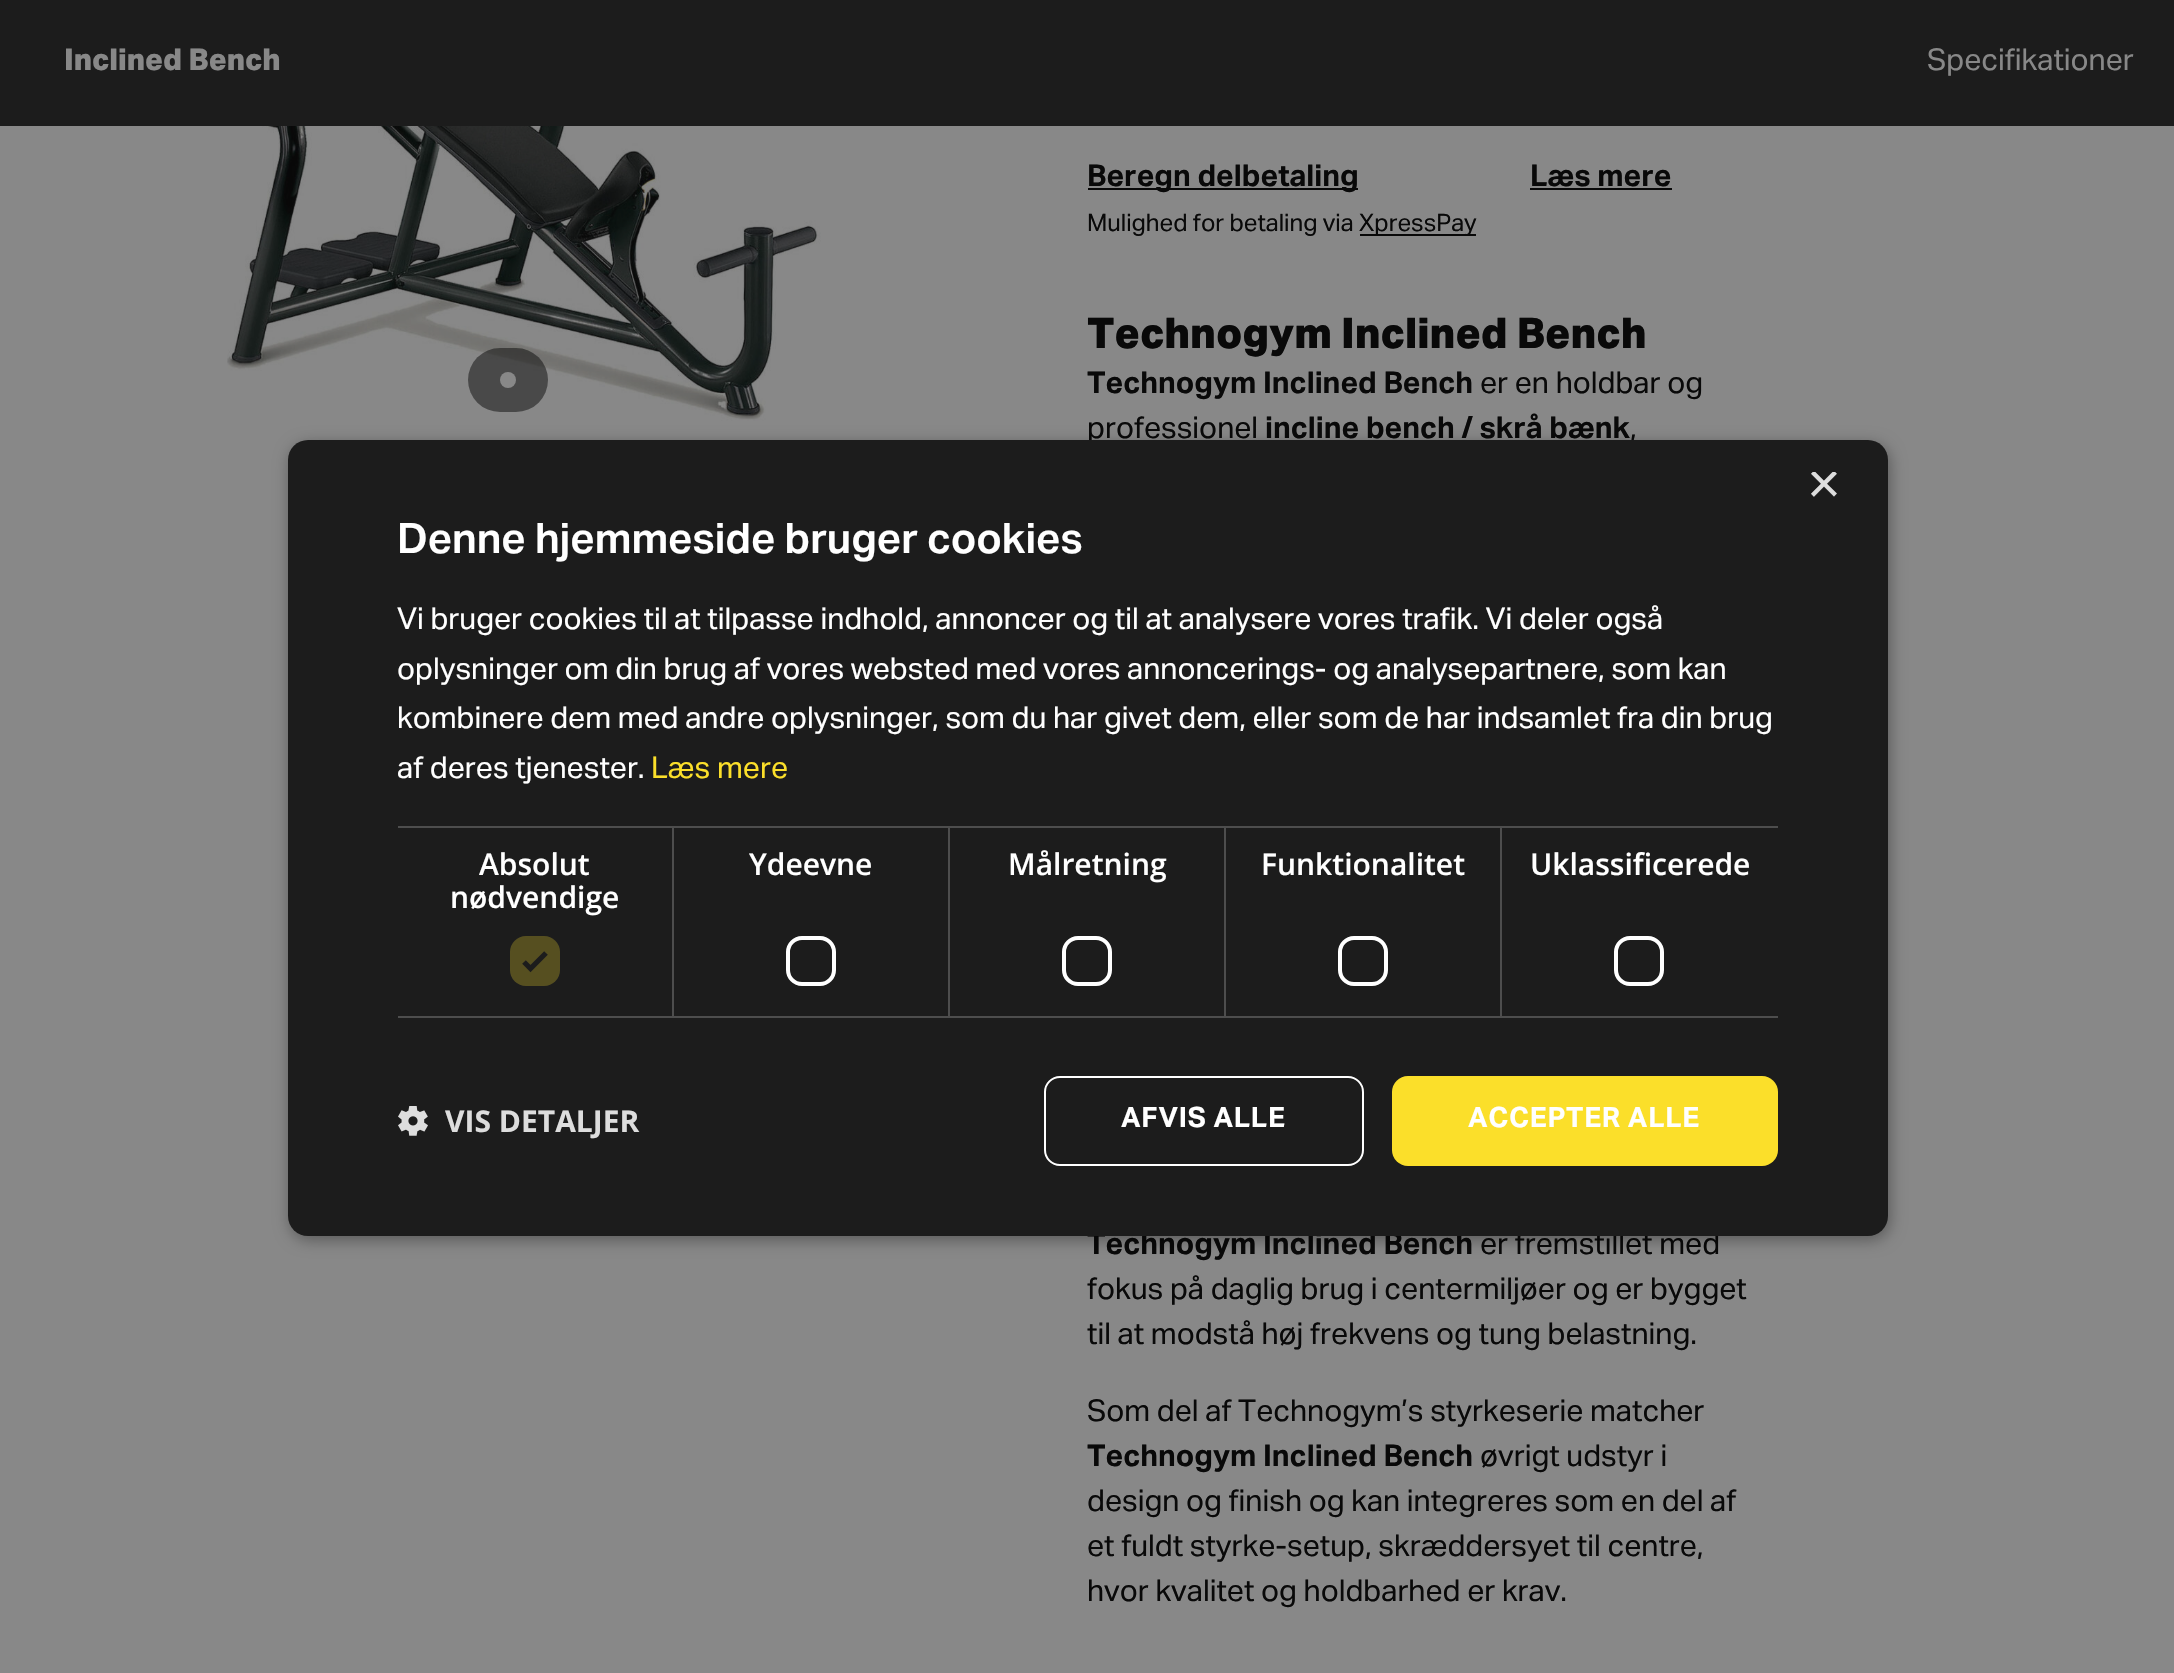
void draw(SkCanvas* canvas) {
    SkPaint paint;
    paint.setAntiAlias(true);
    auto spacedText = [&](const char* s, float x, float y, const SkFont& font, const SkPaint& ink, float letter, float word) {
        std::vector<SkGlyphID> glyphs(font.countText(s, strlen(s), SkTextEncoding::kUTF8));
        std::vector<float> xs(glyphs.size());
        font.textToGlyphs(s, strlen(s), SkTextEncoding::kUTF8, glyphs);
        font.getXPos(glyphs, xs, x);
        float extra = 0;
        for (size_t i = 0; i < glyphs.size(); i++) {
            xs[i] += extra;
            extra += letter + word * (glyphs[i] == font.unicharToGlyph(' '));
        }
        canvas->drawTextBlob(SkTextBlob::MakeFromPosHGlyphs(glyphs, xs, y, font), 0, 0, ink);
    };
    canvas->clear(0xFF888888);
    paint.setColor(0xFF1C1C1C);
    canvas->drawRect(SkRect::MakeXYWH(0, 0, 2174, 126), paint);
    SkFont font1(fontMgr->matchFamilyStyle("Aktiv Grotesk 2", SkFontStyle::Bold()), 30);
    font1.setSubpixel(true);
    paint.setColor(0xFF888888);
    canvas->drawString("Inclined Bench", 64, 70, font1, paint);
    SkFont font2(fontMgr->matchFamilyStyle("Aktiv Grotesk", SkFontStyle::Normal()), 30);
    font2.setSubpixel(true);
    canvas->drawString("Specifikationer", 1927, 70, font2, paint);
    canvas->drawImageRect(SkImages::DeferredFromEncodedData(SkData::MakeFromFileName("img1.png")), SkRect::MakeXYWH(227, 126, 594, 295), SkSamplingOptions());
    paint.setColor(0x80090909);
    canvas->drawRoundRect(SkRect::MakeXYWH(468, 348, 80, 64), 32, 32, paint);
    paint.setColor(0xFF888888);
    canvas->drawCircle(508, 380, 8, paint);
    paint.setColor(0xFF090909);
    canvas->drawRect(SkRect::MakeXYWH(1088, 188, 270, 2), paint);
    SkFont font3(fontMgr->matchFamilyStyle("Aktiv Grotesk", SkFontStyle::Bold()), 30);
    font3.setSubpixel(true);
    canvas->drawString("Beregn delbetaling", 1087, 186, font3, paint);
    SkFont font4(fontMgr->matchFamilyStyle("Aktiv Grotesk", SkFontStyle::Normal()), 24);
    font4.setSubpixel(true);
    canvas->drawString("Mulighed for betaling via", 1087, 231, font4, paint);
    canvas->drawRect(SkRect::MakeXYWH(1360, 234, 116, 2), paint);
    canvas->drawString("XpressPay", 1359, 231, font4, paint);
    canvas->drawString("Læs mere", 1530, 186, font3, paint);
    canvas->drawRect(SkRect::MakeXYWH(1530, 188, 142, 2), paint);
    SkFont font5(fontMgr->matchFamilyStyle("Aktiv Grotesk 2", SkFontStyle::Bold()), 42.3f);
    font5.setSubpixel(true);
    canvas->drawString("Technogym Inclined Bench", 1087, 348, font5, paint);
    canvas->drawString("Technogym Inclined Bench", 1087, 393, font3, paint);
    canvas->drawString("er en holdbar og", 1480, 393, font2, paint);
    canvas->drawString("professionel", 1087, 438, font2, paint);
    canvas->drawString("incline bench / skrå bænk", 1265, 438, font3, paint);
    canvas->drawString(",", 1630, 438, font2, paint);
    canvas->drawString("Technogym Inclined Bench", 1087, 1254, font3, paint);
    canvas->drawString("er fremstillet med", 1480, 1254, font2, paint);
    canvas->drawString("fokus på daglig brug i centermiljøer og er bygget", 1087, 1299, font2, paint);
    canvas->drawString("til at modstå høj frekvens og tung belastning.", 1087, 1344, font2, paint);
    canvas->drawString("Som del af Technogym’s styrkeserie matcher", 1087, 1421, font2, paint);
    canvas->drawString("Technogym Inclined Bench", 1087, 1466, font3, paint);
    canvas->drawString("øvrigt udstyr i", 1480, 1466, font2, paint);
    canvas->drawString("design og finish og kan integreres som en del af", 1087, 1511, font2, paint);
    canvas->drawString("et fuldt styrke-setup, skræddersyet til centre,", 1087, 1556, font2, paint);
    canvas->drawString("hvor kvalitet og holdbarhed er krav.", 1087, 1601, font2, paint);
    paint.setColor(0x59000000);
    paint.setMaskFilter(SkMaskFilter::MakeBlur(kNormal_SkBlurStyle, 8));
    canvas->drawRoundRect(SkRect::MakeXYWH(290, 444, 1600, 796), 20, 20, paint);
    paint.setMaskFilter(nullptr);
    paint.setColor(0xFF1C1C1C);
    canvas->drawRoundRect(SkRect::MakeXYWH(288, 440, 1600, 796), 20, 20, paint);
    canvas->save();
    canvas->clipRect(SkRect::MakeXYWH(1808, 472, 30, 30));
    SkFont font6(fontMgr->matchFamilyStyle("Liberation Sans", SkFontStyle::Normal()), 58);
    font6.setSubpixel(true);
    paint.setColor(0xFFDDDDDD);
    canvas->drawString("×", 1807, 503, font6, paint);
    canvas->restore();
    SkFont font7(fontMgr->matchFamilyStyle("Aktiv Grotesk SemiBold", SkFontStyle(600, SkFontStyle::kNormal_Width, SkFontStyle::kUpright_Slant)), 42);
    font7.setSubpixel(true);
    paint.setColor(0xFFFFFFFF);
    canvas->drawString("Denne hjemmeside bruger cookies", 397, 553, font7, paint);
    canvas->drawString("Vi bruger cookies til at tilpasse indhold, annoncer og til at analysere vores trafik. Vi deler også", 397, 629, font2, paint);
    canvas->drawString("oplysninger om din brug af vores websted med vores annoncerings- og analysepartnere, som kan", 397, 679, font2, paint);
    canvas->drawString("kombinere dem med andre oplysninger, som du har givet dem, eller som de har indsamlet fra din brug", 397, 728, font2, paint);
    canvas->drawString("af deres tjenester.", 397, 778, font2, paint);
    paint.setColor(0xFFFBDF2A);
    canvas->drawString("Læs mere", 651, 778, font2, paint);
    paint.setColor(0xFF4D4D4D);
    canvas->drawRect(SkRect::MakeXYWH(398, 826, 1380, 2), paint);
    canvas->drawRect(SkRect::MakeXYWH(672, 826, 2, 192), paint);
    canvas->drawRect(SkRect::MakeXYWH(398, 1016, 276, 2), paint);
    SkFont font8(fontMgr->matchFamilyStyle("Open Sans", SkFontStyle(600, SkFontStyle::kNormal_Width, SkFontStyle::kUpright_Slant)), 30);
    font8.setSubpixel(true);
    paint.setColor(0xFFFFFFFF);
    canvas->drawString("Absolut", 479, 875, font8, paint);
    canvas->drawString("nødvendige", 450, 908, font8, paint);
    paint.setColor(0xFF564F20);
    canvas->drawRoundRect(SkRect::MakeXYWH(510, 936, 50, 50), 16, 16, paint);
    paint.setStyle(SkPaint::kStroke_Style);
    paint.setStrokeWidth(5.2f);
    paint.setColor(0xFF1C1C1C);
    canvas->drawPath(SkPathBuilder().moveTo(524, 962).lineTo(530.5f, 968.5f).lineTo(546, 953).detach(), paint);
    paint.setStyle(SkPaint::kFill_Style);
    paint.setColor(0xFF4D4D4D);
    canvas->drawRect(SkRect::MakeXYWH(948, 826, 2, 192), paint);
    canvas->drawRect(SkRect::MakeXYWH(674, 1016, 276, 2), paint);
    paint.setColor(0xFFFFFFFF);
    canvas->drawString("Ydeevne", 749, 875, font8, paint);
    paint.setStyle(SkPaint::kStroke_Style);
    paint.setStrokeWidth(4);
    canvas->drawRoundRect(SkRect::MakeXYWH(788, 938, 46, 46), 14, 14, paint);
    paint.setStyle(SkPaint::kFill_Style);
    paint.setColor(0xFF4D4D4D);
    canvas->drawRect(SkRect::MakeXYWH(1224, 826, 2, 192), paint);
    canvas->drawRect(SkRect::MakeXYWH(950, 1016, 276, 2), paint);
    paint.setColor(0xFFFFFFFF);
    canvas->drawString("Målretning", 1008, 875, font8, paint);
    paint.setStyle(SkPaint::kStroke_Style);
    canvas->drawRoundRect(SkRect::MakeXYWH(1064, 938, 46, 46), 14, 14, paint);
    paint.setStyle(SkPaint::kFill_Style);
    paint.setColor(0xFF4D4D4D);
    canvas->drawRect(SkRect::MakeXYWH(1500, 826, 2, 192), paint);
    canvas->drawRect(SkRect::MakeXYWH(1226, 1016, 552, 2), paint);
    paint.setColor(0xFFFFFFFF);
    canvas->drawString("Funktionalitet", 1261, 875, font8, paint);
    paint.setStyle(SkPaint::kStroke_Style);
    canvas->drawRoundRect(SkRect::MakeXYWH(1340, 938, 46, 46), 14, 14, paint);
    paint.setStyle(SkPaint::kFill_Style);
    canvas->drawString("Uklassificerede", 1530, 875, font8, paint);
    paint.setStyle(SkPaint::kStroke_Style);
    canvas->drawRoundRect(SkRect::MakeXYWH(1616, 938, 46, 46), 14, 14, paint);
    canvas->drawImageRect(SkImages::DeferredFromEncodedData(SkData::MakeFromFileName("img2.png")), SkRect::MakeXYWH(398, 1106, 30, 30), SkSamplingOptions());
    SkFont font9(fontMgr->matchFamilyStyle("Open Sans", SkFontStyle::Bold()), 30);
    font9.setSubpixel(true);
    paint.setStyle(SkPaint::kFill_Style);
    paint.setColor(0xFFDDDDDD);
    canvas->drawString("VIS DETALJER", 445, 1132, font9, paint);
    paint.setStyle(SkPaint::kStroke_Style);
    paint.setStrokeWidth(2);
    paint.setColor(0xFFFFFFFF);
    canvas->drawRoundRect(SkRect::MakeXYWH(1045, 1077, 318, 88), 15, 15, paint);
    SkFont font10(fontMgr->matchFamilyStyle("Aktiv Grotesk", SkFontStyle::Bold()), 28);
    font10.setSubpixel(true);
    paint.setStyle(SkPaint::kFill_Style);
    spacedText("AFVIS ALLE", 1121, 1127, font10, paint, 0.75f, 0);
    paint.setColor(0xFFFBDF2A);
    canvas->drawRoundRect(SkRect::MakeXYWH(1392, 1076, 386, 90), 16, 16, paint);
    paint.setColor(0xFFFFFFFF);
    spacedText("ACCEPTER ALLE", 1468, 1127, font10, paint, 0.75f, 0);
}
